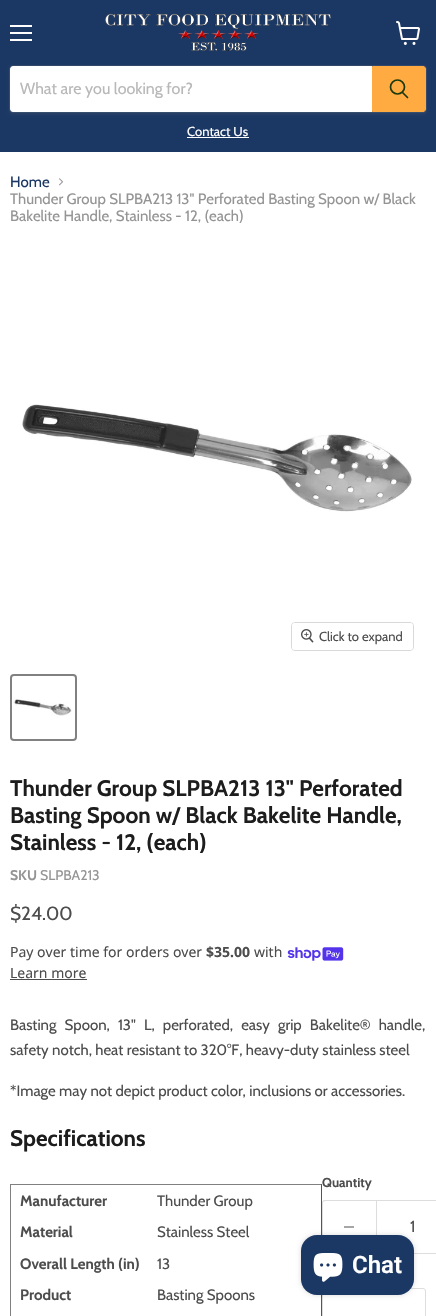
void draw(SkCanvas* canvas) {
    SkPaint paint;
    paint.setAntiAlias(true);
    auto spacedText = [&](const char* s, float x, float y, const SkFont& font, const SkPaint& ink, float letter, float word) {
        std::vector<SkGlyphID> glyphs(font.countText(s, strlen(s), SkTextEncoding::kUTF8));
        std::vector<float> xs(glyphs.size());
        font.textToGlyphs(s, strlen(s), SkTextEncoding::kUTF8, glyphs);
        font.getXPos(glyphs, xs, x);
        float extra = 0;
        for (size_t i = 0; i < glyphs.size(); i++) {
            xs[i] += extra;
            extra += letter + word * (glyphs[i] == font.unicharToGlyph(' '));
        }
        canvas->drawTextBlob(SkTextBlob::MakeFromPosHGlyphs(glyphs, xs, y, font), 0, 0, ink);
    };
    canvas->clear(0xFFFFFFFF);
    paint.setColor(0xFF1B3764);
    canvas->drawRect(SkRect::MakeXYWH(0, 0, 436, 152), paint);
    paint.setColor(0xFFFFFFFF);
    canvas->drawRect(SkRect::MakeXYWH(10, 25, 22, 2), paint);
    canvas->drawRect(SkRect::MakeXYWH(10, 32, 22, 2), paint);
    canvas->drawRect(SkRect::MakeXYWH(10, 39, 22, 2), paint);
    canvas->drawImageRect(SkImages::DeferredFromEncodedData(SkData::MakeFromFileName("img1.png")), SkRect::MakeXYWH(396, 21, 24, 24), SkSamplingOptions());
    canvas->drawImageRect(SkImages::DeferredFromEncodedData(SkData::MakeFromFileName("img2.png")), SkRect::MakeXYWH(105, 13, 226, 39), SkSamplingOptions());
    paint.setColor(0x1C808080);
    paint.setMaskFilter(SkMaskFilter::MakeBlur(kNormal_SkBlurStyle, 1.5f));
    canvas->drawRoundRect(SkRect::MakeXYWH(9, 67, 418, 48), 4, 4, paint);
    paint.setMaskFilter(nullptr);
    paint.setStyle(SkPaint::kStroke_Style);
    paint.setStrokeWidth(1);
    paint.setColor(0x33808080);
    canvas->drawRoundRect(SkRect::MakeXYWH(9.5f, 65.5f, 417, 47), 3.5f, 3.5f, paint);
    paint.setStyle(SkPaint::kFill_Style);
    paint.setColor(0xFFFFFFFF);
    canvas->drawPath(SkPathBuilder().moveTo(13, 66).lineTo(372, 66).lineTo(372, 112).lineTo(13, 112).cubicTo(11.5f, 112, 10, 110.5f, 10, 109).lineTo(10, 69).cubicTo(10, 67.5f, 11.5f, 66, 13, 66).close().detach(), paint);
    SkFont font1(fontMgr->matchFamilyStyle("Cabin", SkFontStyle::Normal()), 16);
    font1.setSubpixel(true);
    paint.setColor(0xFFB8B8B8);
    canvas->drawString("What are you looking for?", 20, 94, font1, paint);
    paint.setColor(0xFFFFAB41);
    canvas->drawPath(SkPathBuilder().moveTo(372.5f, 66.5f).lineTo(423, 66.5f).cubicTo(424.5f, 66.5f, 425.5f, 67.5f, 425.5f, 69).lineTo(425.5f, 109).cubicTo(425.5f, 110.5f, 424.5f, 111.5f, 423, 111.5f).lineTo(372.5f, 111.5f).close().detach(), paint);
    paint.setStyle(SkPaint::kStroke_Style);
    canvas->drawPath(SkPathBuilder().moveTo(372.5f, 66.5f).lineTo(423, 66.5f).cubicTo(424.5f, 66.5f, 425.5f, 67.5f, 425.5f, 69).lineTo(425.5f, 109).cubicTo(425.5f, 110.5f, 424.5f, 111.5f, 423, 111.5f).lineTo(372.5f, 111.5f).close().detach(), paint);
    paint.setStrokeWidth(1.7f);
    paint.setStrokeCap(SkPaint::kRound_Cap);
    paint.setColor(0xFF1A390C);
    canvas->drawPath(SkPathBuilder().moveTo(407.5f, 97.5f).lineTo(402.5f, 92.5f).detach(), paint);
    paint.setStrokeCap(SkPaint::kButt_Cap);
    canvas->drawCircle(397.5f, 87, 7, paint);
    SkFont font2(fontMgr->matchFamilyStyle("Cabin", SkFontStyle::Normal()), 13);
    font2.setSubpixel(true);
    paint.setStyle(SkPaint::kFill_Style);
    paint.setColor(0xFFFFFFFF);
    canvas->drawString("Contact Us", 187, 136, font2, paint);
    canvas->drawRect(SkRect::MakeXYWH(187, 137, 62, 1), paint);
    SkFont font3(fontMgr->matchFamilyStyle("Cabin", SkFontStyle::Normal()), 15);
    font3.setSubpixel(true);
    paint.setColor(0xFF1B3764);
    canvas->drawString("Home", 10, 187, font3, paint);
    canvas->drawImageRect(SkImages::DeferredFromEncodedData(SkData::MakeFromFileName("img3.png")), SkRect::MakeXYWH(59, 178, 4, 8), SkSamplingOptions());
    paint.setColor(0xFF949494);
    canvas->drawString("Thunder Group SLPBA213 13\" Perforated Basting Spoon w/ Black", 10, 204, font3, paint);
    canvas->drawString("Bakelite Handle, Stainless - 12, (each)", 10, 221, font3, paint);
    canvas->drawImageRect(SkImages::DeferredFromEncodedData(SkData::MakeFromFileName("img4.png")), SkRect::MakeXYWH(22, 404, 390, 108), SkSamplingOptions());
    paint.setStyle(SkPaint::kStroke_Style);
    paint.setStrokeWidth(1);
    paint.setColor(0xFFD9D9D9);
    canvas->drawRoundRect(SkRect::MakeXYWH(291.5f, 622.5f, 122, 28), 3.5f, 3.5f, paint);
    paint.setStyle(SkPaint::kFill_Style);
    paint.setColor(0xE6FFFFFF);
    canvas->drawRoundRect(SkRect::MakeXYWH(292, 623, 121, 27), 3, 3, paint);
    canvas->drawImageRect(SkImages::DeferredFromEncodedData(SkData::MakeFromFileName("img5.png")), SkRect::MakeXYWH(301, 629, 13, 14), SkSamplingOptions());
    paint.setColor(0xFF4D4D4D);
    canvas->drawString("Click to expand", 319, 641, font2, paint);
    paint.setStyle(SkPaint::kStroke_Style);
    paint.setStrokeWidth(2);
    paint.setColor(0xFF818181);
    canvas->drawRoundRect(SkRect::MakeXYWH(11, 675, 65, 65), 3, 3, paint);
    canvas->drawImageRect(SkImages::DeferredFromEncodedData(SkData::MakeFromFileName("img6.png")), SkRect::MakeXYWH(13, 699, 59, 17), SkSamplingOptions());
    SkFont font4(fontMgr->matchFamilyStyle("Cabin", SkFontStyle::Bold()), 22.5f);
    font4.setSubpixel(true);
    paint.setStyle(SkPaint::kFill_Style);
    paint.setColor(0xFF1D1D1D);
    canvas->drawString("Thunder Group SLPBA213 13\" Perforated", 10, 796, font4, paint);
    canvas->drawString("Basting Spoon w/ Black Bakelite Handle,", 10, 823, font4, paint);
    canvas->drawString("Stainless - 12, (each)", 10, 850, font4, paint);
    SkFont font5(fontMgr->matchFamilyStyle("Cabin", SkFontStyle::Bold()), 14);
    font5.setSubpixel(true);
    paint.setColor(0xFF949494);
    canvas->drawString("SKU", 10, 880, font5, paint);
    SkFont font6(fontMgr->matchFamilyStyle("Cabin", SkFontStyle::Normal()), 14);
    font6.setSubpixel(true);
    canvas->drawString("SLPBA213", 40, 880, font6, paint);
    SkFont font7(fontMgr->matchFamilyStyle("Cabin", SkFontStyle::Normal()), 19);
    font7.setSubpixel(true);
    paint.setColor(0xFF4D4D4D);
    canvas->drawString("$24.00", 10, 920, font7, paint);
    SkFont font8(fontMgr->matchFamilyStyle("Noto Sans", SkFontStyle::Normal()), 14);
    font8.setSubpixel(true);
    canvas->drawString("Pay over time for orders over", 10, 957, font8, paint);
    SkFont font9(fontMgr->matchFamilyStyle("Noto Sans", SkFontStyle::Bold()), 14);
    font9.setSubpixel(true);
    canvas->drawString("$35.00", 206, 957, font9, paint);
    canvas->drawString("with", 254, 957, font8, paint);
    canvas->drawImageRect(SkImages::DeferredFromEncodedData(SkData::MakeFromFileName("img7.png")), SkRect::MakeXYWH(287, 947, 57, 14), SkSamplingOptions());
    canvas->drawString("Learn more", 10, 978, font8, paint);
    canvas->drawRect(SkRect::MakeXYWH(10, 979, 77, 1), paint);
    spacedText("Basting Spoon, 13\" L, perforated, easy grip Bakelite® handle,", 10, 1030, font3, paint, 0, 4.75f);
    canvas->drawString("safety notch, heat resistant to 320°F, heavy-duty stainless steel", 10, 1055, font3, paint);
    canvas->drawString("*Image may not depict product color, inclusions or accessories.", 10, 1096, font3, paint);
    paint.setColor(0xFF1D1D1D);
    canvas->drawString("Specifications", 10, 1146, font4, paint);
    paint.setColor(0xFF808080);
    canvas->drawRect(SkRect::MakeXYWH(10, 1184, 312, 1), paint);
    paint.setColor(0xFF555555);
    canvas->drawRect(SkRect::MakeXYWH(321, 1184, 1, 132), paint);
    paint.setColor(0xFF808080);
    canvas->drawRect(SkRect::MakeXYWH(10, 1184, 1, 132), paint);
    SkFont font10(fontMgr->matchFamilyStyle("Cabin", SkFontStyle::Bold()), 15);
    font10.setSubpixel(true);
    paint.setColor(0xFF4D4D4D);
    canvas->drawString("Manufacturer", 20, 1206, font10, paint);
    canvas->drawString("Thunder Group", 157, 1206, font3, paint);
    canvas->drawString("Material", 20, 1237, font10, paint);
    canvas->drawString("Stainless Steel", 157, 1237, font3, paint);
    canvas->drawString("Overall Length (in)", 20, 1269, font10, paint);
    canvas->drawString("13", 157, 1269, font3, paint);
    canvas->drawString("Product", 20, 1300, font10, paint);
    canvas->drawString("Basting Spoons", 157, 1300, font3, paint);
    SkFont font11(fontMgr->matchFamilyStyle("Cabin", SkFontStyle::Bold()), 13);
    font11.setSubpixel(true);
    canvas->drawString("Quantity", 322, 1187, font11, paint);
    paint.setColor(0xFFDDDDDD);
    canvas->drawPath(SkPathBuilder(SkPathFillType::kEvenOdd).moveTo(325, 1200).lineTo(376, 1200).lineTo(376, 1254).lineTo(325, 1254).cubicTo(323, 1254, 322, 1253, 322, 1251).lineTo(322, 1203).cubicTo(322, 1201, 323, 1200, 325, 1200).close().moveTo(325, 1201).lineTo(376, 1201).lineTo(376, 1253).lineTo(325, 1253).cubicTo(324, 1253, 323, 1252, 323, 1251).lineTo(323, 1203).cubicTo(323, 1202, 324, 1201, 325, 1201).close().detach(), paint);
    paint.setColor(0xFFA6A6A6);
    canvas->drawRect(SkRect::MakeXYWH(344, 1226, 10, 2), paint);
    paint.setStyle(SkPaint::kStroke_Style);
    paint.setStrokeWidth(1);
    paint.setColor(0xFFDDDDDD);
    canvas->drawRect(SkRect::MakeXYWH(376.5f, 1200.5f, 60, 53), paint);
    paint.setStyle(SkPaint::kFill_Style);
    paint.setColor(0xFF4D4D4D);
    canvas->drawString("1", 410, 1232, font1, paint);
    paint.setStyle(SkPaint::kStroke_Style);
    paint.setColor(0xFFDDDDDD);
    canvas->drawRoundRect(SkRect::MakeXYWH(322.5f, 1288.5f, 103, 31), 2.5f, 2.5f, paint);
    paint.setStyle(SkPaint::kFill_Style);
    paint.setColor(0x26000000);
    paint.setMaskFilter(SkMaskFilter::MakeBlur(kNormal_SkBlurStyle, 2.5f));
    canvas->drawRoundRect(SkRect::MakeXYWH(301, 1235, 113, 60), 16, 16, paint);
    paint.setMaskFilter(nullptr);
    paint.setColor(0xFF1B3764);
    canvas->drawRoundRect(SkRect::MakeXYWH(301, 1235, 113, 60), 16, 16, paint);
    canvas->drawImageRect(SkImages::DeferredFromEncodedData(SkData::MakeFromFileName("img8.png")), SkRect::MakeXYWH(313, 1253, 30, 29), SkSamplingOptions());
    SkFont font12(fontMgr->matchFamilyStyle("Roboto", SkFontStyle(600, SkFontStyle::kNormal_Width, SkFontStyle::kUpright_Slant)), 24);
    font12.setSubpixel(true);
    paint.setColor(0xFFFFFFFF);
    canvas->drawString("Chat", 352, 1273, font12, paint);
}
